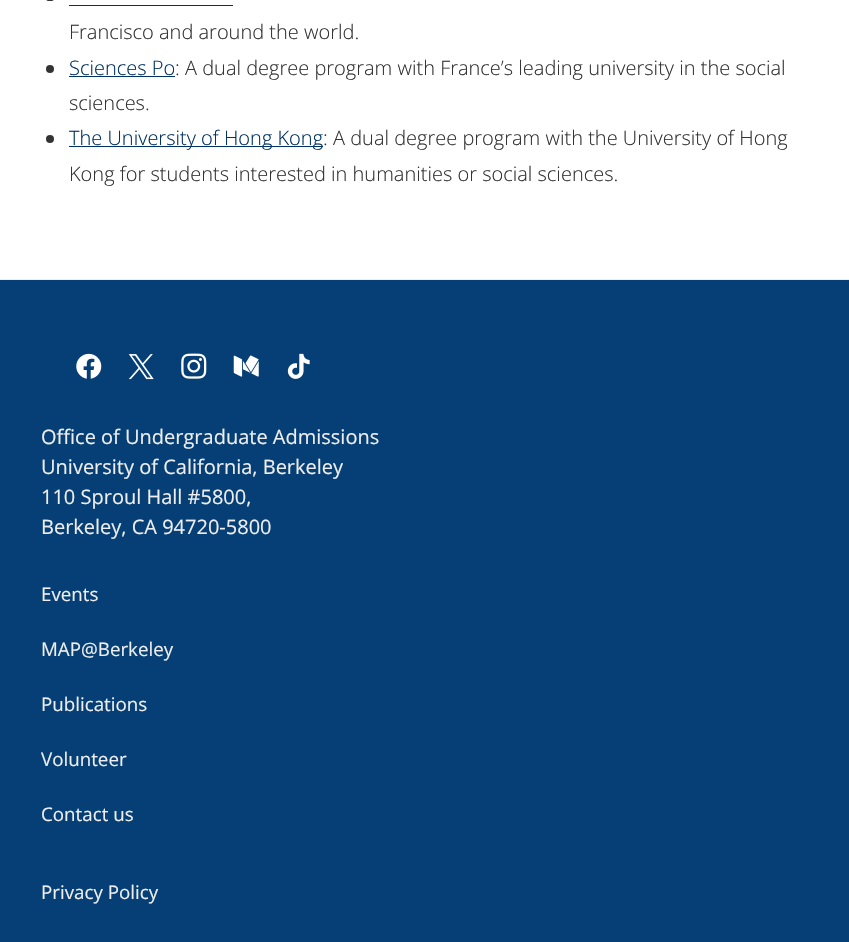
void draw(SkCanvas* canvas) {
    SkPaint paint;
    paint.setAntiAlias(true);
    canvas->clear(0xFFFFFFFF);
    paint.setColor(0xFF333333);
    canvas->drawRoundRect(SkRect::MakeXYWH(46, -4, 8, 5), 3.5f, 3.5f, paint);
    paint.setColor(0xFF003262);
    canvas->drawRect(SkRect::MakeXYWH(69, 5, 164, 1), paint);
    SkFont font1(fontMgr->matchFamilyStyle("Open Sans", SkFontStyle(300, SkFontStyle::kNormal_Width, SkFontStyle::kUpright_Slant)), 20);
    font1.setSubpixel(true);
    paint.setColor(0xFF333333);
    canvas->drawString("Francisco and around the world.", 69, 39, font1, paint);
    canvas->drawCircle(50, 69, 4, paint);
    paint.setColor(0xFF003262);
    canvas->drawString("Sciences Po", 69, 75, font1, paint);
    canvas->drawRect(SkRect::MakeXYWH(69, 76, 106, 1), paint);
    paint.setColor(0xFF333333);
    canvas->drawString(": A dual degree program with France’s leading university in the social", 175, 75, font1, paint);
    canvas->drawString("sciences.", 69, 110, font1, paint);
    canvas->drawCircle(50, 139, 4, paint);
    paint.setColor(0xFF003262);
    canvas->drawRect(SkRect::MakeXYWH(69, 146, 254, 1), paint);
    canvas->drawString("The University of Hong Kong", 69, 145, font1, paint);
    paint.setColor(0xFF333333);
    canvas->drawString(": A dual degree program with the University of Hong", 323, 145, font1, paint);
    canvas->drawString("Kong for students interested in humanities or social sciences.", 69, 181, font1, paint);
    paint.setColor(0xFF063F75);
    canvas->drawRect(SkRect::MakeXYWH(0, 280, 849, 662), paint);
    paint.setColor(0xFFEEEEEE);
    canvas->drawRect(SkRect::MakeXYWH(0, 279, 849, 1), paint);
    canvas->drawImageRect(SkImages::DeferredFromEncodedData(SkData::MakeFromFileName("img1.png")), SkRect::MakeXYWH(76, 353, 26, 26), SkSamplingOptions());
    canvas->drawImageRect(SkImages::DeferredFromEncodedData(SkData::MakeFromFileName("img2.png")), SkRect::MakeXYWH(128, 354, 26, 26), SkSamplingOptions());
    canvas->drawImageRect(SkImages::DeferredFromEncodedData(SkData::MakeFromFileName("img3.png")), SkRect::MakeXYWH(181, 353, 26, 26), SkSamplingOptions());
    canvas->drawImageRect(SkImages::DeferredFromEncodedData(SkData::MakeFromFileName("img4.png")), SkRect::MakeXYWH(233, 355, 26, 22), SkSamplingOptions());
    canvas->drawImageRect(SkImages::DeferredFromEncodedData(SkData::MakeFromFileName("img5.png")), SkRect::MakeXYWH(287, 353, 23, 26), SkSamplingOptions());
    SkFont font2(fontMgr->matchFamilyStyle("Open Sans", SkFontStyle::Normal()), 20);
    font2.setSubpixel(true);
    canvas->drawString("Office of Undergraduate Admissions", 41, 444, font2, paint);
    canvas->drawString("University of California, Berkeley", 41, 474, font2, paint);
    canvas->drawString("110 Sproul Hall #5800,", 41, 504, font2, paint);
    canvas->drawString("Berkeley, CA 94720-5800", 41, 534, font2, paint);
    SkFont font3(fontMgr->matchFamilyStyle("Open Sans", SkFontStyle::Normal()), 18.75f);
    font3.setSubpixel(true);
    canvas->drawString("Events", 41, 601, font3, paint);
    canvas->drawString("MAP@Berkeley", 41, 656, font3, paint);
    canvas->drawString("Publications", 41, 711, font3, paint);
    canvas->drawString("Volunteer", 41, 766, font3, paint);
    canvas->drawString("Contact us", 41, 821, font3, paint);
    canvas->drawString("Privacy Policy", 41, 899, font3, paint);
}
